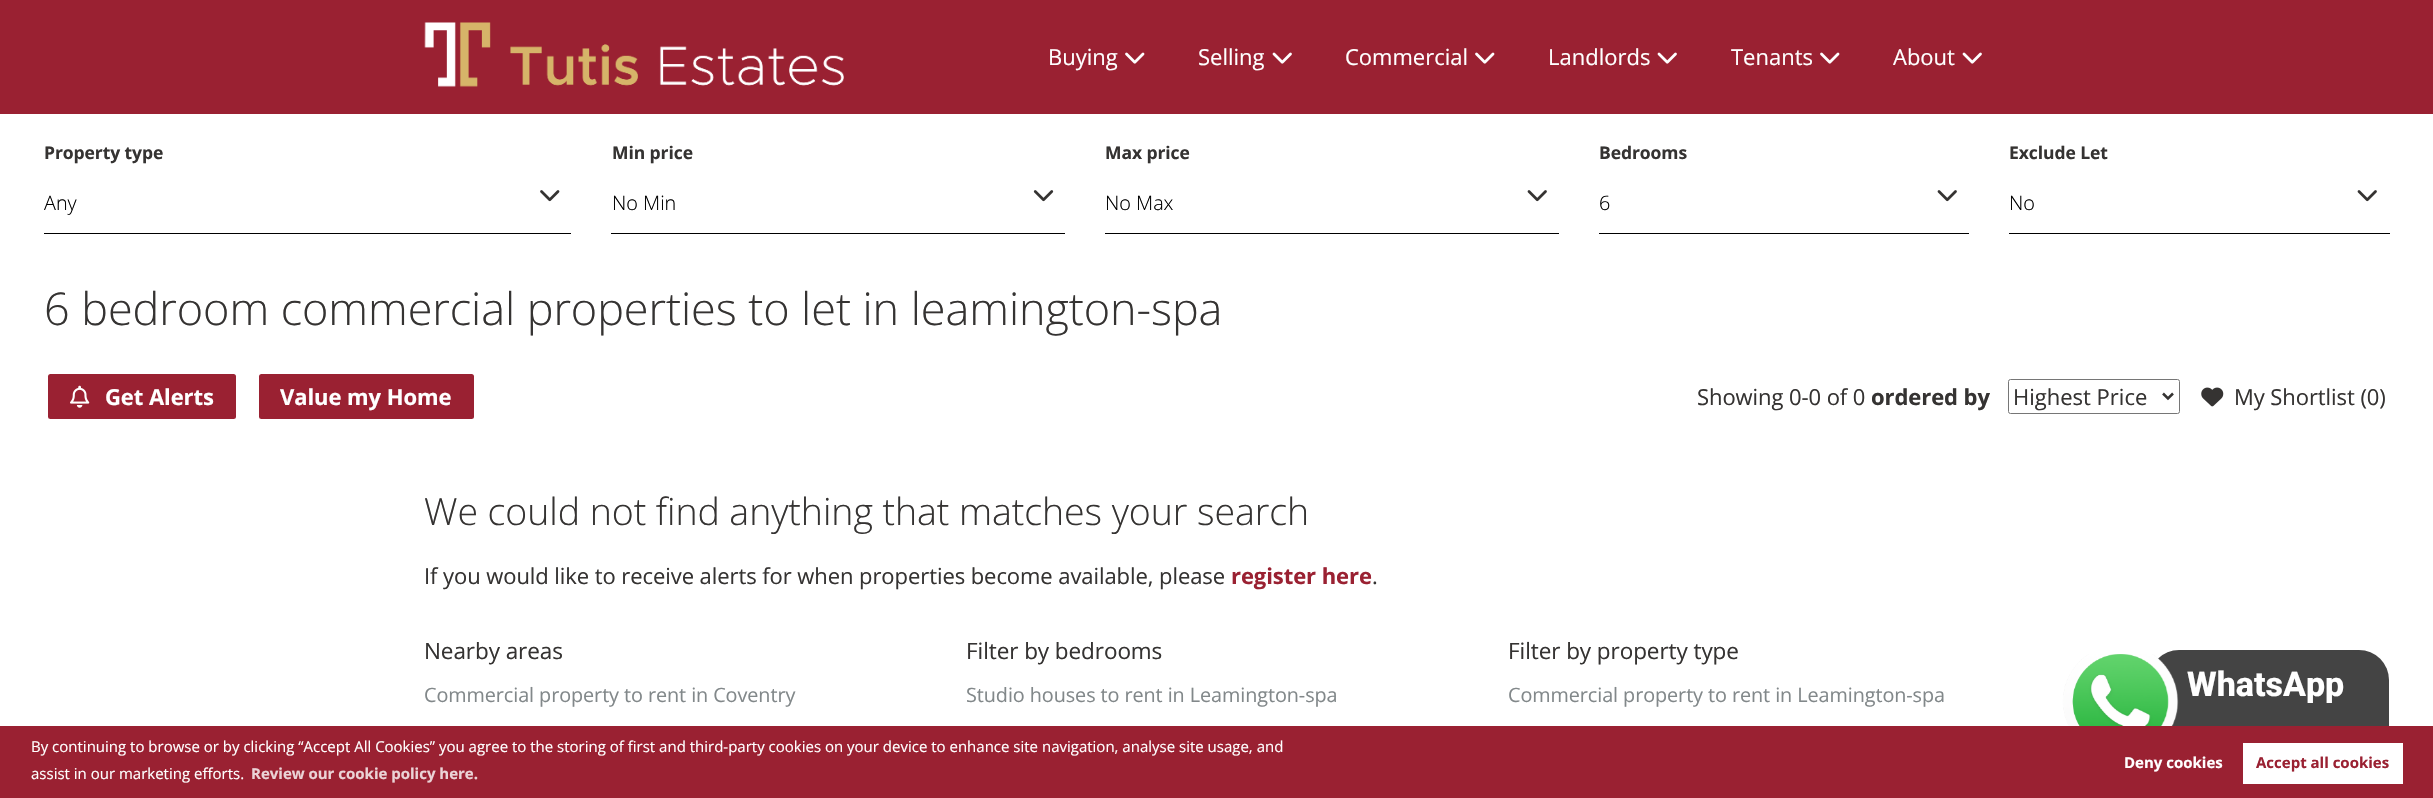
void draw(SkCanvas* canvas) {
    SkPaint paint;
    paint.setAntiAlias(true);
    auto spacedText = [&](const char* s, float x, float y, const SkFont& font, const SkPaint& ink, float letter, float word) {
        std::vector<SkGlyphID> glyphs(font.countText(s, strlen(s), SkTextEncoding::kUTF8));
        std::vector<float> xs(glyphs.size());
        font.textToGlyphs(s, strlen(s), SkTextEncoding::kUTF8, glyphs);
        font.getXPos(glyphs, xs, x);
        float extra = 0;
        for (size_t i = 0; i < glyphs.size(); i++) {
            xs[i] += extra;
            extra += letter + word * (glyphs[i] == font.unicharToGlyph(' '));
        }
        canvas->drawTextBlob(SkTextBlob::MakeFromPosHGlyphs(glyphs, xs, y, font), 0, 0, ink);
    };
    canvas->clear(0xFFFFFFFF);
    paint.setColor(0xFF9A2132);
    canvas->drawRect(SkRect::MakeXYWH(0, 0, 2433, 114), paint);
    canvas->drawImageRect(SkImages::DeferredFromEncodedData(SkData::MakeFromFileName("img1.png")), SkRect::MakeXYWH(424, 22, 420, 65), SkSamplingOptions());
    SkFont font1(fontMgr->matchFamilyStyle("Open Sans", SkFontStyle::Normal()), 22);
    font1.setSubpixel(true);
    paint.setColor(0xFFFFFFFF);
    canvas->drawString("Buying", 1048, 65, font1, paint);
    canvas->drawImageRect(SkImages::DeferredFromEncodedData(SkData::MakeFromFileName("img2.png")), SkRect::MakeXYWH(1125, 52, 20, 12), SkSamplingOptions());
    canvas->drawString("Selling", 1198, 65, font1, paint);
    canvas->drawImageRect(SkImages::DeferredFromEncodedData(SkData::MakeFromFileName("img3.png")), SkRect::MakeXYWH(1272, 52, 20, 12), SkSamplingOptions());
    canvas->drawString("Commercial", 1345, 65, font1, paint);
    canvas->drawImageRect(SkImages::DeferredFromEncodedData(SkData::MakeFromFileName("img2.png")), SkRect::MakeXYWH(1475, 52, 20, 12), SkSamplingOptions());
    canvas->drawString("Landlords", 1548, 65, font1, paint);
    canvas->drawImageRect(SkImages::DeferredFromEncodedData(SkData::MakeFromFileName("img3.png")), SkRect::MakeXYWH(1657, 52, 20, 12), SkSamplingOptions());
    canvas->drawString("Tenants", 1731, 65, font1, paint);
    canvas->drawImageRect(SkImages::DeferredFromEncodedData(SkData::MakeFromFileName("img2.png")), SkRect::MakeXYWH(1820, 52, 20, 12), SkSamplingOptions());
    canvas->drawString("About", 1893, 65, font1, paint);
    canvas->drawImageRect(SkImages::DeferredFromEncodedData(SkData::MakeFromFileName("img3.png")), SkRect::MakeXYWH(1962, 52, 20, 12), SkSamplingOptions());
    SkFont font2(fontMgr->matchFamilyStyle("Open Sans", SkFontStyle::Bold()), 17.5f);
    font2.setSubpixel(true);
    paint.setColor(0xFF353332);
    spacedText("Property type", 44, 159, font2, paint, -0.07f, 0);
    paint.setColor(0xFF000000);
    canvas->drawRect(SkRect::MakeXYWH(44, 233, 527, 1), paint);
    SkFont font3(fontMgr->matchFamilyStyle("Open Sans", SkFontStyle(300, SkFontStyle::kNormal_Width, SkFontStyle::kUpright_Slant)), 19.8f);
    font3.setSubpixel(true);
    canvas->drawString("Any", 44, 210, font3, paint);
    canvas->drawImageRect(SkImages::DeferredFromEncodedData(SkData::MakeFromFileName("img4.png")), SkRect::MakeXYWH(540, 190, 20, 12), SkSamplingOptions());
    paint.setColor(0xFF353332);
    spacedText("Min price", 612, 159, font2, paint, -0.07f, 0);
    paint.setColor(0xFF000000);
    canvas->drawRect(SkRect::MakeXYWH(611, 233, 454, 1), paint);
    canvas->drawString("No Min", 612, 210, font3, paint);
    canvas->drawImageRect(SkImages::DeferredFromEncodedData(SkData::MakeFromFileName("img5.png")), SkRect::MakeXYWH(1033, 190, 21, 12), SkSamplingOptions());
    paint.setColor(0xFF353332);
    spacedText("Max price", 1105, 159, font2, paint, -0.07f, 0);
    paint.setColor(0xFF000000);
    canvas->drawRect(SkRect::MakeXYWH(1105, 233, 454, 1), paint);
    canvas->drawString("No Max", 1105, 210, font3, paint);
    canvas->drawImageRect(SkImages::DeferredFromEncodedData(SkData::MakeFromFileName("img6.png")), SkRect::MakeXYWH(1527, 190, 20, 12), SkSamplingOptions());
    paint.setColor(0xFF353332);
    spacedText("Bedrooms", 1599, 159, font2, paint, -0.07f, 0);
    paint.setColor(0xFF000000);
    canvas->drawRect(SkRect::MakeXYWH(1599, 233, 370, 1), paint);
    canvas->drawString("6", 1599, 210, font3, paint);
    canvas->drawImageRect(SkImages::DeferredFromEncodedData(SkData::MakeFromFileName("img6.png")), SkRect::MakeXYWH(1937, 190, 20, 12), SkSamplingOptions());
    paint.setColor(0xFF353332);
    spacedText("Exclude Let", 2009, 159, font2, paint, -0.07f, 0);
    paint.setColor(0xFF000000);
    canvas->drawRect(SkRect::MakeXYWH(2009, 233, 381, 1), paint);
    canvas->drawString("No", 2009, 210, font3, paint);
    canvas->drawImageRect(SkImages::DeferredFromEncodedData(SkData::MakeFromFileName("img6.png")), SkRect::MakeXYWH(2357, 190, 20, 12), SkSamplingOptions());
    SkFont font4(fontMgr->matchFamilyStyle("Open Sans", SkFontStyle(300, SkFontStyle::kNormal_Width, SkFontStyle::kUpright_Slant)), 45);
    font4.setSubpixel(true);
    paint.setColor(0xFF353332);
    spacedText("6 bedroom commercial properties to let in leamington-spa", 44, 325, font4, paint, -0.07f, 0);
    paint.setColor(0xFF9A2132);
    canvas->drawRoundRect(SkRect::MakeXYWH(48, 374, 188, 45), 2.5f, 2.5f, paint);
    canvas->drawImageRect(SkImages::DeferredFromEncodedData(SkData::MakeFromFileName("img7.png")), SkRect::MakeXYWH(70, 385, 20, 23), SkSamplingOptions());
    SkFont font5(fontMgr->matchFamilyStyle("Open Sans", SkFontStyle::Bold()), 22);
    font5.setSubpixel(true);
    paint.setColor(0xFFFFFFFF);
    spacedText("Get Alerts", 105, 405, font5, paint, -0.07f, 0);
    paint.setColor(0xFF9A2132);
    canvas->drawRoundRect(SkRect::MakeXYWH(259, 374, 215, 45), 2.5f, 2.5f, paint);
    paint.setColor(0xFFFFFFFF);
    spacedText("Value my Home", 280, 405, font5, paint, -0.07f, 0);
    paint.setColor(0xFF353332);
    spacedText("Showing 0-0 of 0", 1697, 405, font1, paint, -0.07f, 0);
    spacedText("ordered by", 1871, 405, font5, paint, -0.07f, 0);
    paint.setStyle(SkPaint::kStroke_Style);
    paint.setStrokeWidth(1);
    paint.setColor(0xFF767676);
    canvas->drawRoundRect(SkRect::MakeXYWH(2008.5f, 379.5f, 171, 34), 2, 2, paint);
    paint.setStrokeWidth(2.5f);
    paint.setColor(0xFF353332);
    canvas->drawPath(SkPathBuilder().moveTo(2163, 393.5f).lineTo(2168, 398.5f).lineTo(2173, 393.5f).detach(), paint);
    paint.setStyle(SkPaint::kFill_Style);
    canvas->drawString("Highest Price", 2013, 405, font1, paint);
    canvas->drawImageRect(SkImages::DeferredFromEncodedData(SkData::MakeFromFileName("img8.png")), SkRect::MakeXYWH(2201, 387, 23, 20), SkSamplingOptions());
    spacedText("My Shortlist (0)", 2234, 405, font1, paint, -0.07f, 0);
    SkFont font6(fontMgr->matchFamilyStyle("Open Sans", SkFontStyle(300, SkFontStyle::kNormal_Width, SkFontStyle::kUpright_Slant)), 37.5f);
    font6.setSubpixel(true);
    spacedText("We could not find anything that matches your search", 424, 525, font6, paint, -0.07f, 0);
    spacedText("If you would like to receive alerts for when properties become available, please", 424, 584, font1, paint, -0.07f, 0);
    paint.setColor(0xFF9A2132);
    spacedText("register here", 1231, 584, font5, paint, -0.07f, 0);
    paint.setColor(0xFF353332);
    spacedText(".", 1372, 584, font1, paint, -0.07f, 0);
    SkFont font7(fontMgr->matchFamilyStyle("Open Sans", SkFontStyle::Normal()), 22.5f);
    font7.setSubpixel(true);
    spacedText("Nearby areas", 424, 659, font7, paint, -0.07f, 0);
    SkFont font8(fontMgr->matchFamilyStyle("Open Sans", SkFontStyle::Normal()), 19.8f);
    font8.setSubpixel(true);
    paint.setColor(0xFF82888A);
    spacedText("Commercial property to rent in Coventry", 424, 702, font8, paint, -0.07f, 0);
    paint.setColor(0xFF353332);
    spacedText("Filter by bedrooms", 966, 659, font7, paint, -0.07f, 0);
    paint.setColor(0xFF82888A);
    spacedText("Studio houses to rent in Leamington-spa", 966, 702, font8, paint, -0.07f, 0);
    paint.setColor(0xFF353332);
    spacedText("Filter by property type", 1508, 659, font7, paint, -0.07f, 0);
    paint.setColor(0xFF82888A);
    spacedText("Commercial property to rent in Leamington-spa", 1508, 702, font8, paint, -0.07f, 0);
    paint.setColor(0xFF444444);
    canvas->drawRoundRect(SkRect::MakeXYWH(2149, 650, 240, 113), 30, 30, paint);
    canvas->drawImageRect(SkImages::DeferredFromEncodedData(SkData::MakeFromFileName("img9.png")), SkRect::MakeXYWH(2062, 654, 117, 72), SkSamplingOptions());
    SkFont font9(fontMgr->matchFamilyStyle("Roboto", SkFontStyle(800, SkFontStyle::kNormal_Width, SkFontStyle::kUpright_Slant)), 34);
    font9.setSubpixel(true);
    paint.setColor(0xFFFFFFFF);
    canvas->drawString("WhatsApp", 2187, 696, font9, paint);
    paint.setColor(0xFF9A2132);
    canvas->drawRect(SkRect::MakeXYWH(0, 726, 2433, 72), paint);
    SkFont font10(fontMgr->matchFamilyStyle("Open Sans", SkFontStyle::Normal()), 15);
    font10.setSubpixel(true);
    paint.setColor(0xFFFFFFFF);
    canvas->drawString("By continuing to browse or by clicking “Accept All Cookies” you agree to the storing of first and third-party cookies on your device to enhance site navigation, analyse site usage, and", 31, 752, font10, paint);
    canvas->drawString("assist in our marketing efforts.", 31, 779, font10, paint);
    SkFont font11(fontMgr->matchFamilyStyle("Open Sans", SkFontStyle::Bold()), 15);
    font11.setSubpixel(true);
    paint.setColor(0xFFEBD3D6);
    canvas->drawString("Review our cookie policy here.", 251, 779, font11, paint);
    paint.setColor(0xFFFFFFFF);
    canvas->drawString("Deny cookies", 2124, 768, font11, paint);
    canvas->drawRect(SkRect::MakeXYWH(2243, 743, 160, 41), paint);
    paint.setColor(0xFF9A2132);
    canvas->drawString("Accept all cookies", 2256, 768, font11, paint);
}
